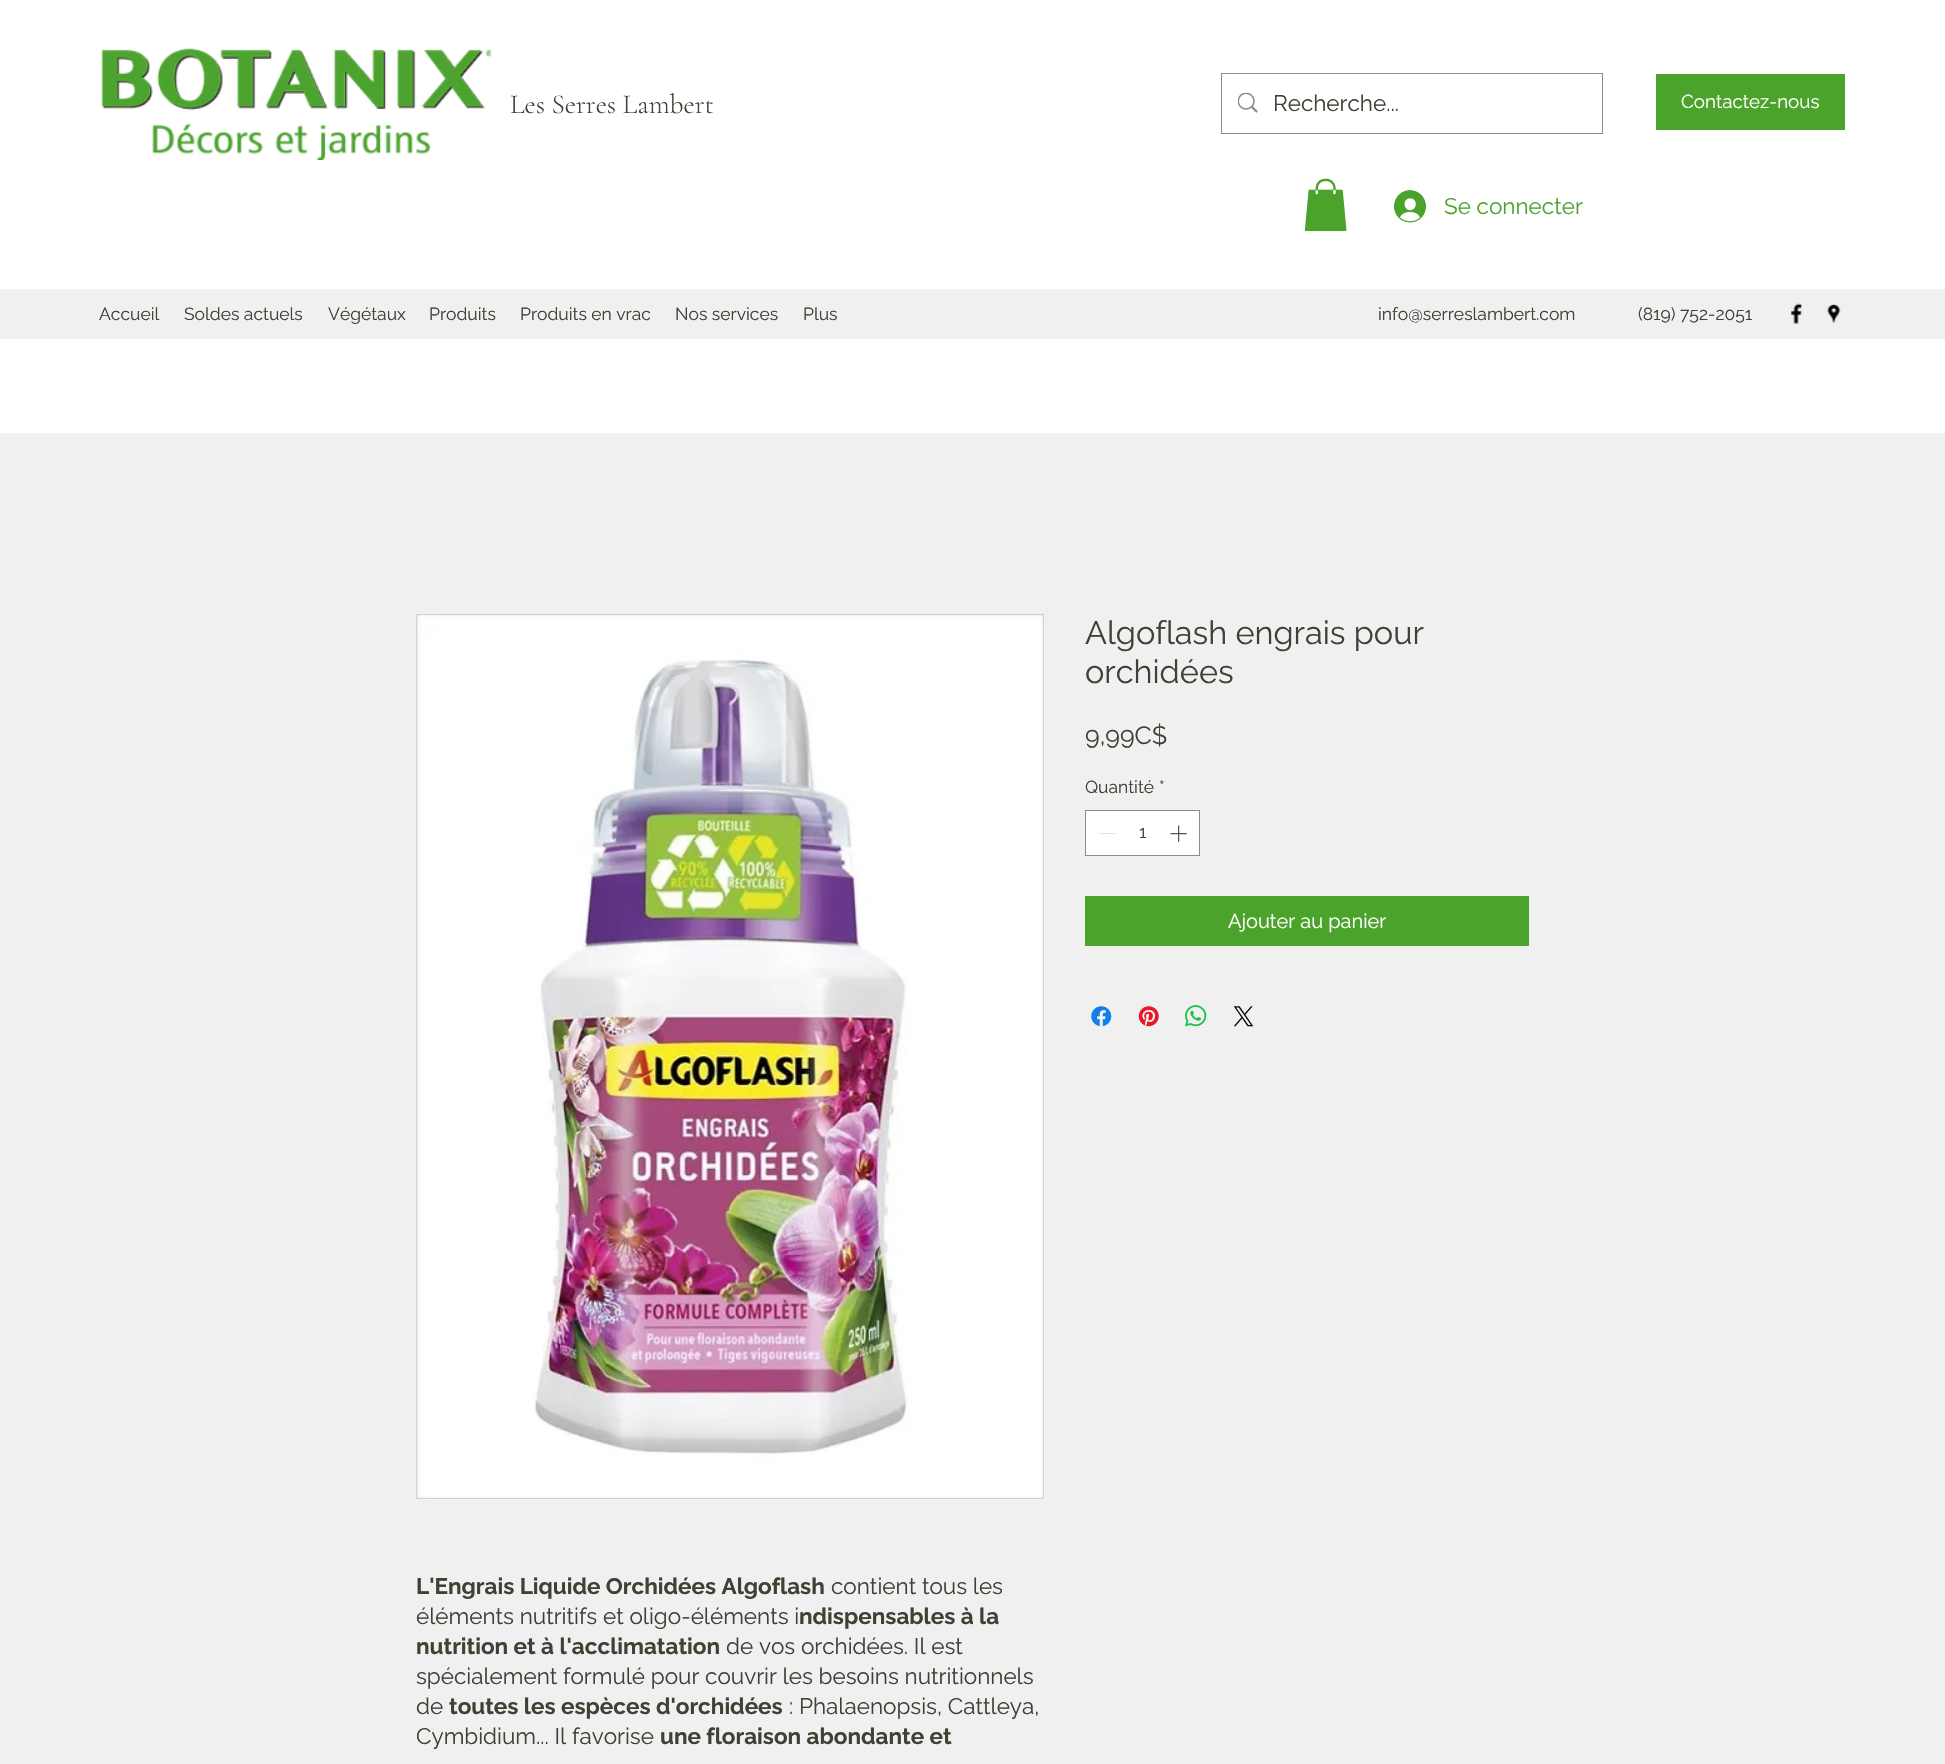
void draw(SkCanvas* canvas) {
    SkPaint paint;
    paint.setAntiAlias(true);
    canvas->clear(0xFFF0F0F0);
    paint.setColor(0xFFFFFFFF);
    canvas->drawRect(SkRect::MakeXYWH(0, 0, 1945, 433), paint);
    canvas->drawImageRect(SkImages::DeferredFromEncodedData(SkData::MakeFromFileName("img1.png")), SkRect::MakeXYWH(101, 48, 391, 112), SkSamplingOptions());
    SkFont font1(fontMgr->matchFamilyStyle("Cormorant Garamond", SkFontStyle(300, SkFontStyle::kNormal_Width, SkFontStyle::kUpright_Slant)), 27.5f);
    font1.setSubpixel(true);
    paint.setColor(0xFF3E4134);
    canvas->drawString("Les Serres Lambert", 510, 113, font1, paint);
    paint.setStyle(SkPaint::kStroke_Style);
    paint.setStrokeWidth(1);
    paint.setColor(0xFF8B8D85);
    canvas->drawRect(SkRect::MakeXYWH(1221.5f, 73.5f, 381, 60), paint);
    canvas->drawImageRect(SkImages::DeferredFromEncodedData(SkData::MakeFromFileName("img2.png")), SkRect::MakeXYWH(1238, 93, 20, 20), SkSamplingOptions());
    SkFont font2(fontMgr->matchFamilyStyle("Raleway", SkFontStyle::Normal()), 22.5f);
    font2.setSubpixel(true);
    paint.setStyle(SkPaint::kFill_Style);
    paint.setColor(0xFF3E4134);
    canvas->drawString("Recherche...", 1273, 111, font2, paint);
    paint.setColor(0xFF4CA32C);
    canvas->drawRect(SkRect::MakeXYWH(1656, 74, 189, 56), paint);
    SkFont font3(fontMgr->matchFamilyStyle("Raleway", SkFontStyle::Normal()), 18.75f);
    font3.setSubpixel(true);
    paint.setColor(0xFFFFFFFF);
    canvas->drawString("Contactez-nous", 1681, 108, font3, paint);
    canvas->drawImageRect(SkImages::DeferredFromEncodedData(SkData::MakeFromFileName("img3.png")), SkRect::MakeXYWH(1304, 178, 43, 54), SkSamplingOptions());
    canvas->drawImageRect(SkImages::DeferredFromEncodedData(SkData::MakeFromFileName("img4.png")), SkRect::MakeXYWH(1394, 190, 32, 33), SkSamplingOptions());
    paint.setColor(0xFF4CA32C);
    canvas->drawString("Se connecter", 1444, 214, font2, paint);
    paint.setColor(0xFFF0F0F0);
    canvas->drawRect(SkRect::MakeXYWH(0, 289, 1945, 50), paint);
    SkFont font4(fontMgr->matchFamilyStyle("Raleway", SkFontStyle::Normal()), 17.5f);
    font4.setSubpixel(true);
    paint.setColor(0xFF3E4134);
    canvas->drawString("Accueil", 99, 320, font4, paint);
    canvas->drawString("Soldes actuels", 184, 320, font4, paint);
    canvas->drawString("Végétaux", 328, 320, font4, paint);
    canvas->drawString("Produits", 429, 320, font4, paint);
    canvas->drawString("Produits en vrac", 520, 320, font4, paint);
    canvas->drawString("Nos services", 675, 320, font4, paint);
    canvas->drawString("Plus", 803, 320, font4, paint);
    canvas->drawString("info@serreslambert.com", 1378, 320, font4, paint);
    canvas->drawString("(819) 752-2051", 1638, 320, font4, paint);
    canvas->drawImageRect(SkImages::DeferredFromEncodedData(SkData::MakeFromFileName("img5.png")), SkRect::MakeXYWH(1791, 303, 11, 21), SkSamplingOptions());
    canvas->drawImageRect(SkImages::DeferredFromEncodedData(SkData::MakeFromFileName("img6.png")), SkRect::MakeXYWH(1827, 303, 14, 20), SkSamplingOptions());
    SkFont font5(fontMgr->matchFamilyStyle("Raleway", SkFontStyle::Normal()), 32.5f);
    font5.setSubpixel(true);
    canvas->drawString("Algoflash engrais pour", 1085, 644, font5, paint);
    canvas->drawString("orchidées", 1085, 683, font5, paint);
    SkFont font6(fontMgr->matchFamilyStyle("Raleway", SkFontStyle::Normal()), 25);
    font6.setSubpixel(true);
    canvas->drawString("9,99C$", 1085, 744, font6, paint);
    canvas->drawString("Quantité", 1085, 793, font4, paint);
    canvas->drawString("*", 1159, 793, font4, paint);
    paint.setColor(0xFFFFFFFF);
    canvas->drawRect(SkRect::MakeXYWH(1085.5f, 810.5f, 114, 45), paint);
    paint.setStyle(SkPaint::kStroke_Style);
    paint.setColor(0xFF8B8D85);
    canvas->drawRect(SkRect::MakeXYWH(1085.5f, 810.5f, 114, 45), paint);
    paint.setStyle(SkPaint::kFill_Style);
    paint.setColor(0xFFE3E3E3);
    canvas->drawRect(SkRect::MakeXYWH(1099, 833, 17, 1), paint);
    paint.setColor(0xFF3E4134);
    canvas->drawString("1", 1139, 838, font4, paint);
    canvas->drawImageRect(SkImages::DeferredFromEncodedData(SkData::MakeFromFileName("img7.png")), SkRect::MakeXYWH(1170, 825, 17, 17), SkSamplingOptions());
    paint.setColor(0xFF4CA32C);
    canvas->drawRect(SkRect::MakeXYWH(1085, 896, 444, 50), paint);
    SkFont font7(fontMgr->matchFamilyStyle("Raleway", SkFontStyle::Normal()), 20);
    font7.setSubpixel(true);
    paint.setColor(0xFFFFFFFF);
    canvas->drawString("Ajouter au panier", 1228, 928, font7, paint);
    canvas->drawImageRect(SkImages::DeferredFromEncodedData(SkData::MakeFromFileName("img8.png")), SkRect::MakeXYWH(1091, 1006, 21, 21), SkSamplingOptions());
    canvas->drawImageRect(SkImages::DeferredFromEncodedData(SkData::MakeFromFileName("img9.png")), SkRect::MakeXYWH(1138, 1006, 21, 21), SkSamplingOptions());
    canvas->drawImageRect(SkImages::DeferredFromEncodedData(SkData::MakeFromFileName("img10.png")), SkRect::MakeXYWH(1185, 1005, 22, 22), SkSamplingOptions());
    canvas->drawImageRect(SkImages::DeferredFromEncodedData(SkData::MakeFromFileName("img11.png")), SkRect::MakeXYWH(1233, 1006, 21, 21), SkSamplingOptions());
    paint.setStyle(SkPaint::kStroke_Style);
    paint.setColor(0xFFD1D3C8);
    canvas->drawRect(SkRect::MakeXYWH(416.5f, 614.5f, 627, 884), paint);
    canvas->drawImageRect(SkImages::DeferredFromEncodedData(SkData::MakeFromFileName("img12.png")), SkRect::MakeXYWH(418, 615, 625, 883), SkSamplingOptions());
    SkFont font8(fontMgr->matchFamilyStyle("Raleway", SkFontStyle::Bold()), 22.5f);
    font8.setSubpixel(true);
    paint.setStyle(SkPaint::kFill_Style);
    paint.setColor(0xFF3E4134);
    canvas->drawString("L'Engrais Liquide Orchidées Algoflash", 416, 1594, font8, paint);
    canvas->drawString("contient tous les", 831, 1594, font2, paint);
    canvas->drawString("éléments nutritifs et oligo-éléments i", 416, 1624, font2, paint);
    canvas->drawString("ndispensables à la", 799, 1624, font8, paint);
    canvas->drawString("nutrition et à l'acclimatation", 416, 1654, font8, paint);
    canvas->drawString("de vos orchidées. Il est", 726, 1654, font2, paint);
    canvas->drawString("spécialement", 416, 1684, font2, paint);
    canvas->drawString("formulé pour couvrir les besoins nutritionnels", 563, 1684, font2, paint);
    canvas->drawString("de", 416, 1714, font2, paint);
    canvas->drawString("toutes les espèces d'orchidées", 449, 1714, font8, paint);
    canvas->drawString(": Phalaenopsis, Cattleya,", 789, 1714, font2, paint);
    canvas->drawString("Cymbidium... Il favorise", 416, 1744, font2, paint);
    canvas->drawString("une floraison abondante et", 660, 1744, font8, paint);
}
